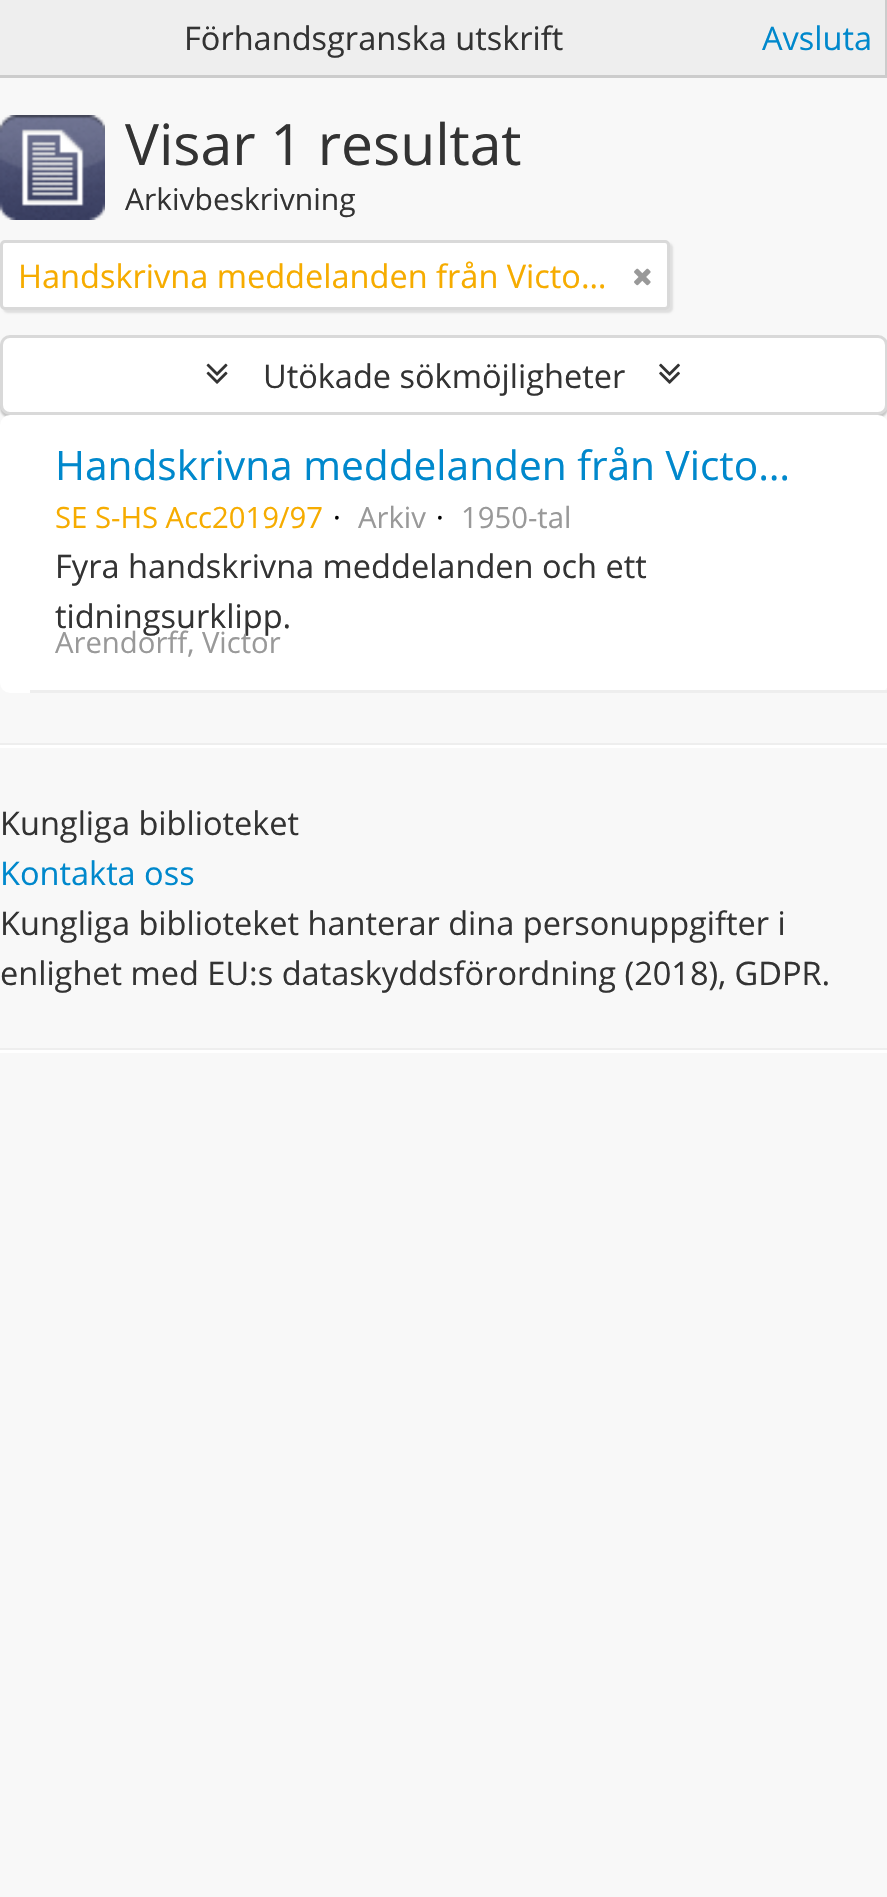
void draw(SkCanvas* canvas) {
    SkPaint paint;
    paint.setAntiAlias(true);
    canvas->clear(0xFFF8F8F8);
    paint.setColor(0xFFEEEEEE);
    canvas->drawRect(SkRect::MakeXYWH(0, 0, 885, 75), paint);
    paint.setColor(0xFFCCCCCC);
    canvas->drawRect(SkRect::MakeXYWH(885, 0, 2, 78), paint);
    canvas->drawRect(SkRect::MakeXYWH(0, 75, 887, 3), paint);
    SkFont font1(fontMgr->matchFamilyStyle("Open Sans", SkFontStyle::Normal()), 32.5f);
    font1.setSubpixel(true);
    paint.setColor(0xFF333333);
    canvas->drawString("Förhandsgranska utskrift", 184, 50, font1, paint);
    paint.setColor(0xFF0088CC);
    canvas->drawString("Avsluta", 762, 50, font1, paint);
    canvas->drawImageRect(SkImages::DeferredFromEncodedData(SkData::MakeFromFileName("img1.png")), SkRect::MakeXYWH(0, 115, 105, 105), SkSamplingOptions());
    SkFont font2(fontMgr->matchFamilyStyle("Open Sans", SkFontStyle::Normal()), 57);
    font2.setSubpixel(true);
    paint.setColor(0xFF333333);
    canvas->drawString("Visar 1 resultat", 125, 165, font2, paint);
    SkFont font3(fontMgr->matchFamilyStyle("Open Sans", SkFontStyle::Normal()), 30);
    font3.setSubpixel(true);
    canvas->drawString("Arkivbeskrivning", 125, 210, font3, paint);
    paint.setColor(0x1A000000);
    paint.setMaskFilter(SkMaskFilter::MakeBlur(kNormal_SkBlurStyle, 1));
    canvas->drawRoundRect(SkRect::MakeXYWH(3, 243, 670, 70), 5, 5, paint);
    paint.setMaskFilter(nullptr);
    paint.setColor(0xFFFFFFFF);
    canvas->drawRoundRect(SkRect::MakeXYWH(1.5f, 241.5f, 667, 67), 3.5f, 3.5f, paint);
    paint.setStyle(SkPaint::kStroke_Style);
    paint.setStrokeWidth(3);
    paint.setColor(0xFFD9D9D9);
    canvas->drawRoundRect(SkRect::MakeXYWH(1.5f, 241.5f, 667, 67), 3.5f, 3.5f, paint);
    paint.setStyle(SkPaint::kFill_Style);
    paint.setColor(0xFFF6AC00);
    canvas->drawString("Handskrivna meddelanden från Victo…", 18, 288, font1, paint);
    canvas->drawImageRect(SkImages::DeferredFromEncodedData(SkData::MakeFromFileName("img2.png")), SkRect::MakeXYWH(634, 268, 17, 18), SkSamplingOptions());
    paint.setColor(0x33000000);
    paint.setMaskFilter(SkMaskFilter::MakeBlur(kNormal_SkBlurStyle, 1));
    canvas->drawRoundRect(SkRect::MakeXYWH(0, 338, 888, 80), 10, 10, paint);
    paint.setMaskFilter(nullptr);
    paint.setColor(0xFFFFFFFF);
    canvas->drawRoundRect(SkRect::MakeXYWH(1.5f, 336.5f, 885, 77), 8.5f, 8.5f, paint);
    paint.setStyle(SkPaint::kStroke_Style);
    paint.setColor(0xFFD9D9D9);
    canvas->drawRoundRect(SkRect::MakeXYWH(1.5f, 336.5f, 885, 77), 8.5f, 8.5f, paint);
    canvas->drawImageRect(SkImages::DeferredFromEncodedData(SkData::MakeFromFileName("img3.png")), SkRect::MakeXYWH(206, 363, 22, 21), SkSamplingOptions());
    paint.setStyle(SkPaint::kFill_Style);
    paint.setColor(0xFF333333);
    canvas->drawString("Utökade sökmöjligheter", 263, 388, font1, paint);
    canvas->drawImageRect(SkImages::DeferredFromEncodedData(SkData::MakeFromFileName("img4.png")), SkRect::MakeXYWH(659, 363, 21, 21), SkSamplingOptions());
    paint.setColor(0xFFFFFFFF);
    canvas->drawRoundRect(SkRect::MakeXYWH(0, 415, 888, 278), 10, 10, paint);
    paint.setColor(0xFFEEEEEE);
    canvas->drawRect(SkRect::MakeXYWH(30, 690, 857, 3), paint);
    SkFont font4(fontMgr->matchFamilyStyle("Open Sans", SkFontStyle::Normal()), 40.6f);
    font4.setSubpixel(true);
    paint.setColor(0xFF0088CC);
    canvas->drawString("Handskrivna meddelanden från Victo…", 55, 480, font4, paint);
    SkFont font5(fontMgr->matchFamilyStyle("Open Sans", SkFontStyle::Normal()), 29.25f);
    font5.setSubpixel(true);
    paint.setColor(0xFFF6AC00);
    canvas->drawString("SE S-HS Acc2019/97", 55, 528, font5, paint);
    paint.setColor(0xFF000000);
    canvas->drawString("·", 333, 528, font5, paint);
    paint.setColor(0xFF999999);
    canvas->drawString("Arkiv", 358, 528, font5, paint);
    paint.setColor(0xFF000000);
    canvas->drawString("·", 436, 528, font5, paint);
    paint.setColor(0xFF999999);
    canvas->drawString("1950-tal", 461, 528, font5, paint);
    paint.setColor(0xFF333333);
    canvas->drawString("Fyra handskrivna meddelanden och ett", 55, 578, font1, paint);
    canvas->drawString("tidningsurklipp.", 55, 628, font1, paint);
    paint.setColor(0xFF999999);
    canvas->drawString("Arendorff, Victor", 55, 653, font5, paint);
    paint.setColor(0xFFEEEEEE);
    canvas->drawRect(SkRect::MakeXYWH(0, 743, 887, 2), paint);
    paint.setColor(0xFFFFFFFF);
    canvas->drawRect(SkRect::MakeXYWH(0, 745, 887, 3), paint);
    paint.setColor(0xFF333333);
    canvas->drawString("Kungliga biblioteket", 0, 835, font1, paint);
    paint.setColor(0xFF0088CC);
    canvas->drawString("Kontakta oss", 0, 885, font1, paint);
    paint.setColor(0xFF333333);
    canvas->drawString("Kungliga biblioteket hanterar dina personuppgifter i", 0, 935, font1, paint);
    canvas->drawString("enlighet med EU:s dataskyddsförordning (2018), GDPR.", 0, 985, font1, paint);
    paint.setColor(0xFFEEEEEE);
    canvas->drawRect(SkRect::MakeXYWH(0, 1048, 887, 2), paint);
    paint.setColor(0xFFFFFFFF);
    canvas->drawRect(SkRect::MakeXYWH(0, 1050, 887, 3), paint);
}
